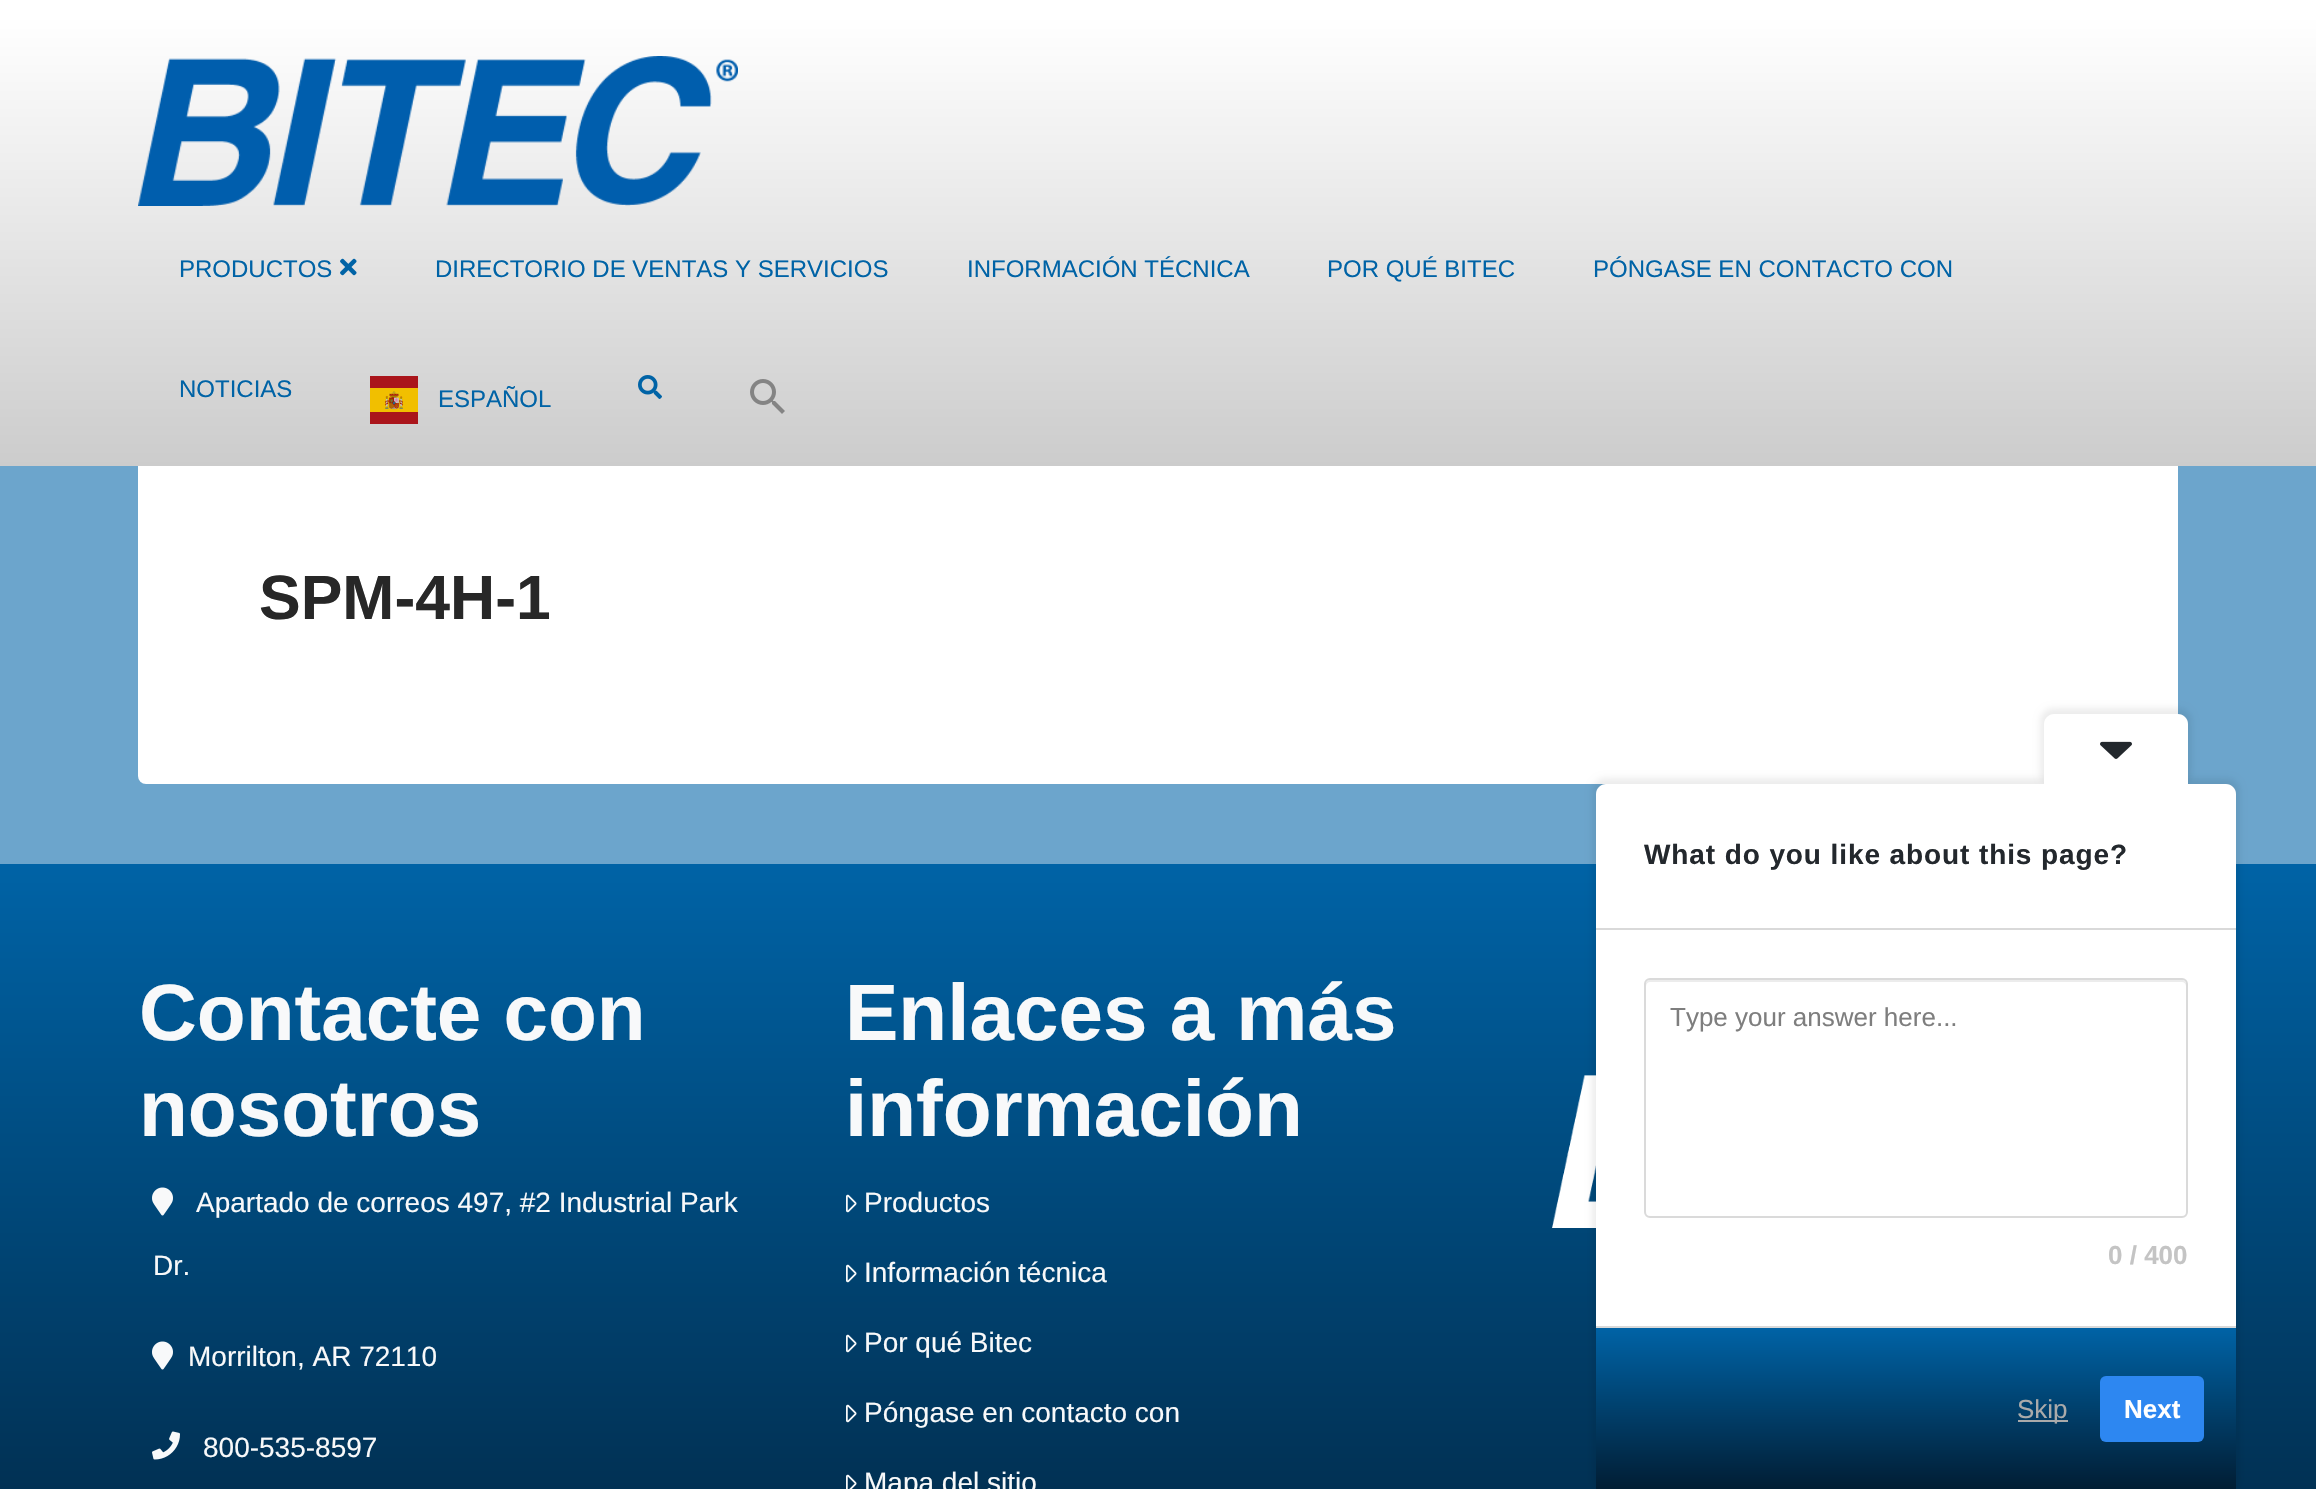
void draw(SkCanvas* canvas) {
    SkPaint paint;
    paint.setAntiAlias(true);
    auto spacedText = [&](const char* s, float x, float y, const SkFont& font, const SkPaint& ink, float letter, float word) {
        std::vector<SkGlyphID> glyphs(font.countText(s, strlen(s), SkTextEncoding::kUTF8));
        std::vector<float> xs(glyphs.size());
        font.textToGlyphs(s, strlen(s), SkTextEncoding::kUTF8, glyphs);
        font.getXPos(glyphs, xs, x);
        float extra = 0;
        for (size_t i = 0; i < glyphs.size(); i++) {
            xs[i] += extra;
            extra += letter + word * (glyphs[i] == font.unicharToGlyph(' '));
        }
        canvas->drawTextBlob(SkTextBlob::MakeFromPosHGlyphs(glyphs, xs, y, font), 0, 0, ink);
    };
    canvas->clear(0xFF6CA5CC);
    paint.setColor(0xFFFFFFFF);
    canvas->drawRect(SkRect::MakeXYWH(0, 0, 2316, 16), paint);
    canvas->drawRoundRect(SkRect::MakeXYWH(138, 446, 2040, 338), 8, 8, paint);
    {
        const SkColor colors[] = {0xFFCCCCCC, 0xFFFFFFFF};
        const float stops[] = {0, 1};
        const SkPoint ends[] = {{1158, 466}, {1158, 16}};
        paint.setShader(SkGradientShader::MakeLinear(ends, colors, stops, 2, SkTileMode::kClamp));
        paint.setAlpha(255);
    }
    canvas->drawRect(SkRect::MakeXYWH(0, 16, 2316, 450), paint);
    canvas->drawImageRect(SkImages::DeferredFromEncodedData(SkData::MakeFromFileName("img1.png")), SkRect::MakeXYWH(138, 56, 600, 150), SkSamplingOptions());
    SkFont font1(fontMgr->matchFamilyStyle("Liberation Sans", SkFontStyle::Normal()), 24);
    font1.setSubpixel(true);
    paint.setShader(nullptr);
    paint.setColor(0xFF0063A6);
    canvas->drawString("PRODUCTOS", 179, 277, font1, paint);
    canvas->drawImageRect(SkImages::DeferredFromEncodedData(SkData::MakeFromFileName("img2.png")), SkRect::MakeXYWH(340, 258, 17, 18), SkSamplingOptions());
    canvas->drawString("DIRECTORIO DE VENTAS Y SERVICIOS", 435, 277, font1, paint);
    canvas->drawString("INFORMACIÓN TÉCNICA", 967, 277, font1, paint);
    canvas->drawString("POR QUÉ BITEC", 1327, 277, font1, paint);
    canvas->drawString("PÓNGASE EN CONTACTO CON", 1593, 277, font1, paint);
    canvas->drawString("NOTICIAS", 179, 397, font1, paint);
    canvas->drawImageRect(SkImages::DeferredFromEncodedData(SkData::MakeFromFileName("img3.png")), SkRect::MakeXYWH(370, 376, 48, 48), SkSamplingOptions());
    canvas->drawString("ESPAÑOL", 438, 407, font1, paint);
    canvas->drawImageRect(SkImages::DeferredFromEncodedData(SkData::MakeFromFileName("img4.png")), SkRect::MakeXYWH(638, 375, 24, 24), SkSamplingOptions());
    canvas->drawImageRect(SkImages::DeferredFromEncodedData(SkData::MakeFromFileName("img5.png")), SkRect::MakeXYWH(750, 379, 35, 35), SkSamplingOptions());
    SkFont font2(fontMgr->matchFamilyStyle("Liberation Sans", SkFontStyle::Bold()), 62.5f);
    font2.setSubpixel(true);
    paint.setColor(0xFF272727);
    canvas->drawString("SPM-4H-1", 259, 619, font2, paint);
    {
        const SkColor colors[] = {0xFF011D33, 0xFF0063A6};
        const float stops[] = {0, 1};
        const SkPoint ends[] = {{1158, 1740}, {1158, 864}};
        paint.setShader(SkGradientShader::MakeLinear(ends, colors, stops, 2, SkTileMode::kClamp));
        paint.setAlpha(255);
    }
    canvas->drawRect(SkRect::MakeXYWH(0, 864, 2316, 625), paint);
    SkFont font3(fontMgr->matchFamilyStyle("Liberation Sans", SkFontStyle::Bold()), 80);
    font3.setSubpixel(true);
    paint.setShader(nullptr);
    paint.setColor(0xFFF8F9FA);
    canvas->drawString("Contacte con", 139, 1040, font3, paint);
    canvas->drawString("nosotros", 139, 1136, font3, paint);
    canvas->drawImageRect(SkImages::DeferredFromEncodedData(SkData::MakeFromFileName("img6.png")), SkRect::MakeXYWH(152, 1187, 21, 29), SkSamplingOptions());
    SkFont font4(fontMgr->matchFamilyStyle("Liberation Sans", SkFontStyle::Normal()), 28);
    font4.setSubpixel(true);
    canvas->drawString("Apartado de correos 497, #2 Industrial Park", 196, 1212, font4, paint);
    canvas->drawString("Dr.", 153, 1275, font4, paint);
    canvas->drawImageRect(SkImages::DeferredFromEncodedData(SkData::MakeFromFileName("img7.png")), SkRect::MakeXYWH(152, 1341, 21, 29), SkSamplingOptions());
    canvas->drawString("Morrilton, AR 72110", 188, 1366, font4, paint);
    canvas->drawImageRect(SkImages::DeferredFromEncodedData(SkData::MakeFromFileName("img8.png")), SkRect::MakeXYWH(152, 1431, 28, 29), SkSamplingOptions());
    canvas->drawString("800-535-8597", 203, 1457, font4, paint);
    canvas->drawString("Enlaces a más", 845, 1040, font3, paint);
    canvas->drawString("información", 845, 1136, font3, paint);
    canvas->drawImageRect(SkImages::DeferredFromEncodedData(SkData::MakeFromFileName("img9.png")), SkRect::MakeXYWH(846, 1194, 11, 19), SkSamplingOptions());
    canvas->drawString("Productos", 864, 1212, font4, paint);
    canvas->drawImageRect(SkImages::DeferredFromEncodedData(SkData::MakeFromFileName("img10.png")), SkRect::MakeXYWH(846, 1264, 11, 19), SkSamplingOptions());
    canvas->drawString("Información técnica", 864, 1282, font4, paint);
    canvas->drawImageRect(SkImages::DeferredFromEncodedData(SkData::MakeFromFileName("img11.png")), SkRect::MakeXYWH(846, 1334, 11, 19), SkSamplingOptions());
    canvas->drawString("Por qué Bitec", 864, 1352, font4, paint);
    canvas->drawImageRect(SkImages::DeferredFromEncodedData(SkData::MakeFromFileName("img12.png")), SkRect::MakeXYWH(846, 1404, 11, 19), SkSamplingOptions());
    canvas->drawString("Póngase en contacto con", 864, 1422, font4, paint);
    canvas->drawImageRect(SkImages::DeferredFromEncodedData(SkData::MakeFromFileName("img13.png")), SkRect::MakeXYWH(846, 1474, 11, 15), SkSamplingOptions());
    canvas->drawString("Mapa del sitio", 864, 1492, font4, paint);
    canvas->drawImageRect(SkImages::DeferredFromEncodedData(SkData::MakeFromFileName("img14.png")), SkRect::MakeXYWH(1552, 1075, 44, 153), SkSamplingOptions());
    paint.setColor(0x12000000);
    paint.setMaskFilter(SkMaskFilter::MakeBlur(kNormal_SkBlurStyle, 3));
    canvas->drawRoundRect(SkRect::MakeXYWH(1592, 778, 648, 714), 14, 14, paint);
    paint.setMaskFilter(nullptr);
    paint.setColor(0xFFFFFFFF);
    canvas->drawPath(SkPathBuilder().moveTo(1606, 784).lineTo(2226, 784).cubicTo(2231.5f, 784, 2236, 788.5f, 2236, 794).lineTo(2236, 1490).lineTo(1596, 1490).lineTo(1596, 794).cubicTo(1596, 788.5f, 1600.5f, 784, 1606, 784).close().detach(), paint);
    canvas->save();
    canvas->clipPath(SkPathBuilder().moveTo(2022.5f, 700).lineTo(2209.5f, 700).lineTo(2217, 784).lineTo(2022.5f, 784).close().detach(), true);
    paint.setColor(0x12000000);
    paint.setMaskFilter(SkMaskFilter::MakeBlur(kNormal_SkBlurStyle, 3));
    canvas->drawRoundRect(SkRect::MakeXYWH(2040, 708, 152, 78), 14, 14, paint);
    paint.setMaskFilter(nullptr);
    canvas->restore();
    paint.setColor(0xFFFFFFFF);
    canvas->drawPath(SkPathBuilder().moveTo(2054, 714).lineTo(2178, 714).cubicTo(2183.5f, 714, 2188, 718.5f, 2188, 724).lineTo(2188, 784).lineTo(2044, 784).lineTo(2044, 724).cubicTo(2044, 718.5f, 2048.5f, 714, 2054, 714).close().detach(), paint);
    canvas->drawImageRect(SkImages::DeferredFromEncodedData(SkData::MakeFromFileName("img15.png")), SkRect::MakeXYWH(2100, 741, 32, 18), SkSamplingOptions());
    SkFont font5(fontMgr->matchFamilyStyle("Liberation Sans", SkFontStyle::Bold()), 28);
    font5.setSubpixel(true);
    paint.setColor(0xFF23282D);
    spacedText("What do you like about this page?", 1644, 864, font5, paint, 0.9f, 0);
    paint.setColor(0xFFD9D9D9);
    canvas->drawRect(SkRect::MakeXYWH(1596, 928, 640, 2), paint);
    canvas->drawRect(SkRect::MakeXYWH(1596, 1326, 640, 2), paint);
    paint.setColor(0xFFECECEC);
    canvas->drawPath(SkPathBuilder().moveTo(1650, 982).lineTo(2182, 982).cubicTo(2184, 982, 2186, 984, 2186, 986).lineTo(2186, 984).cubicTo(2186, 982, 2184, 980, 2182, 980).lineTo(1650, 980).cubicTo(1648, 980, 1646, 982, 1646, 984).lineTo(1646, 986).cubicTo(1646, 984, 1648, 982, 1650, 982).close().detach(), paint);
    paint.setStyle(SkPaint::kStroke_Style);
    paint.setStrokeWidth(2);
    paint.setColor(0xFFDADADA);
    canvas->drawRoundRect(SkRect::MakeXYWH(1645, 979, 542, 238), 5, 5, paint);
    SkFont font6(fontMgr->matchFamilyStyle("Liberation Sans", SkFontStyle::Normal()), 26);
    font6.setSubpixel(true);
    paint.setStyle(SkPaint::kFill_Style);
    paint.setColor(0xFF7E7E7E);
    canvas->drawString("Type your answer here...", 1670, 1026, font6, paint);
    SkFont font7(fontMgr->matchFamilyStyle("Liberation Sans", SkFontStyle::Bold()), 26);
    font7.setSubpixel(true);
    paint.setColor(0xFFC4C4C4);
    canvas->drawString("0 / 400", 2108, 1264, font7, paint);
    {
        const SkColor colors[] = {0xFF011D33, 0xFF0063A6};
        const float stops[] = {0, 1};
        const SkPoint ends[] = {{1916, 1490}, {1916, 1328}};
        paint.setShader(SkGradientShader::MakeLinear(ends, colors, stops, 2, SkTileMode::kClamp));
        paint.setAlpha(255);
    }
    canvas->drawRect(SkRect::MakeXYWH(1596, 1328, 640, 161), paint);
    paint.setShader(nullptr);
    paint.setColor(0xFFAAAAAA);
    canvas->drawRect(SkRect::MakeXYWH(2018, 1420, 50, 2), paint);
    canvas->drawString("Skip", 2017, 1418, font6, paint);
    paint.setColor(0xFF2D87F1);
    canvas->drawRoundRect(SkRect::MakeXYWH(2100, 1376, 104, 66), 6, 6, paint);
    paint.setColor(0xFFFFFFFF);
    canvas->drawString("Next", 2124, 1418, font7, paint);
}
